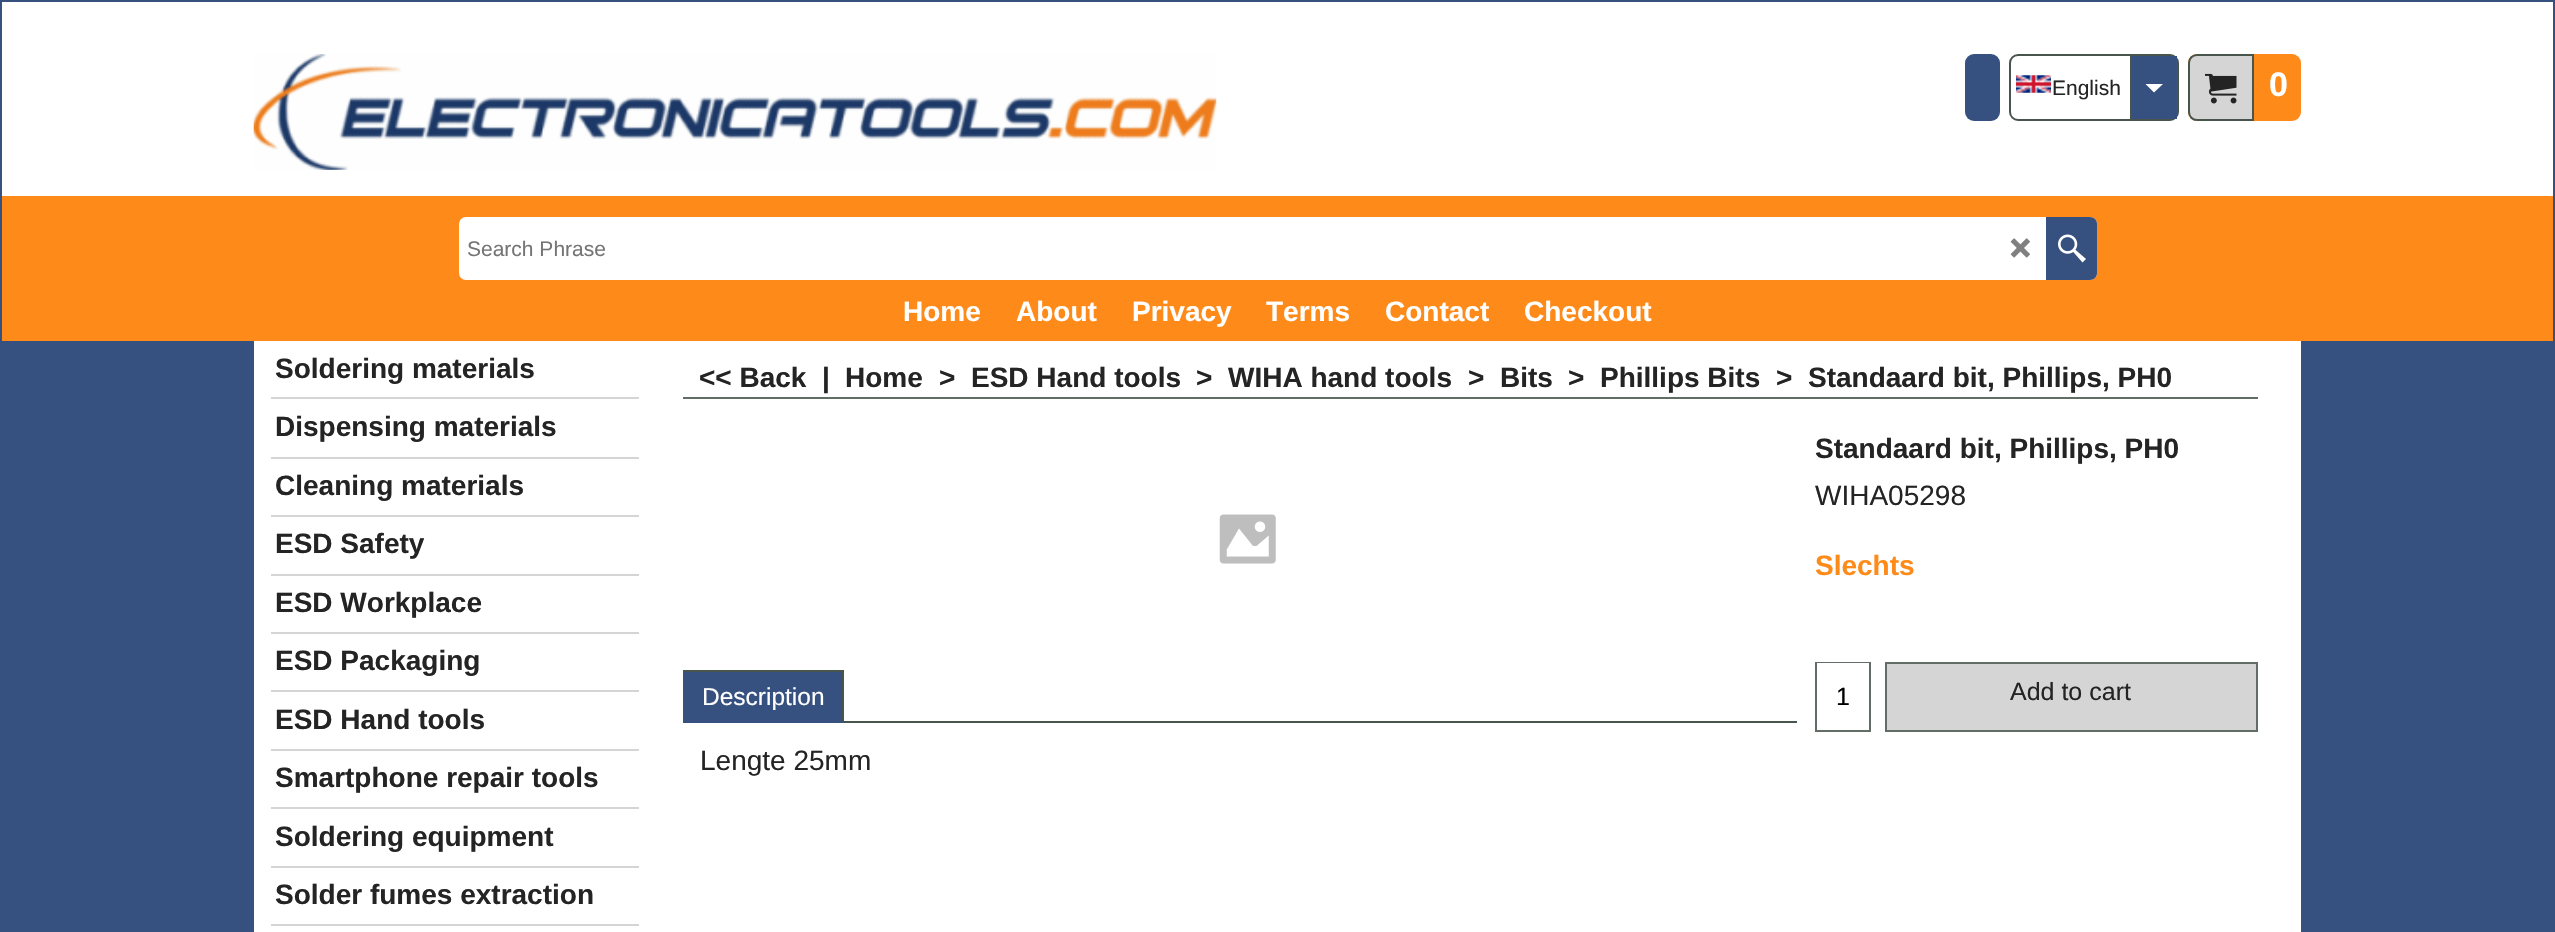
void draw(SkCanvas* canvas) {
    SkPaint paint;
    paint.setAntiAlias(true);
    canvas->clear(0xFF36517F);
    paint.setColor(0xFFFFFFFF);
    canvas->drawRect(SkRect::MakeXYWH(2, 2, 2551, 194), paint);
    canvas->drawImageRect(SkImages::DeferredFromEncodedData(SkData::MakeFromFileName("img1.png")), SkRect::MakeXYWH(253, 54, 964, 116), SkSamplingOptions());
    paint.setColor(0xFF36517F);
    canvas->drawRoundRect(SkRect::MakeXYWH(1965, 54, 35, 67), 9, 9, paint);
    paint.setStyle(SkPaint::kStroke_Style);
    paint.setStrokeWidth(2);
    paint.setColor(0xFF48554D);
    canvas->drawRoundRect(SkRect::MakeXYWH(2010, 55, 168, 65), 8, 8, paint);
    canvas->drawImageRect(SkImages::DeferredFromEncodedData(SkData::MakeFromFileName("img2.png")), SkRect::MakeXYWH(2016, 75, 35, 18), SkSamplingOptions());
    SkFont font1(fontMgr->matchFamilyStyle("Liberation Sans", SkFontStyle::Normal()), 21);
    font1.setSubpixel(true);
    paint.setStyle(SkPaint::kFill_Style);
    paint.setColor(0xFF242424);
    canvas->drawString("English", 2052, 95, font1, paint);
    paint.setColor(0xFF36517F);
    canvas->drawRect(SkRect::MakeXYWH(2132, 56, 45, 63), paint);
    paint.setColor(0xFF48554D);
    canvas->drawRect(SkRect::MakeXYWH(2130, 56, 2, 63), paint);
    paint.setColor(0xFFFFFFFF);
    canvas->drawPath(SkPathBuilder().moveTo(2145.5f, 84).lineTo(2154, 92.5f).lineTo(2163, 84).close().detach(), paint);
    paint.setColor(0xFFFE8B19);
    canvas->drawRoundRect(SkRect::MakeXYWH(2188, 54, 113, 67), 9, 9, paint);
    paint.setColor(0xFFD5D5D5);
    canvas->drawPath(SkPathBuilder().moveTo(2197, 55).lineTo(2253, 55).lineTo(2253, 120).lineTo(2197, 120).cubicTo(2192.5f, 120, 2189, 116.5f, 2189, 112).lineTo(2189, 63).cubicTo(2189, 58.5f, 2192.5f, 55, 2197, 55).close().detach(), paint);
    paint.setStyle(SkPaint::kStroke_Style);
    paint.setColor(0xFF48554D);
    canvas->drawPath(SkPathBuilder().moveTo(2197, 55).lineTo(2253, 55).lineTo(2253, 120).lineTo(2197, 120).cubicTo(2192.5f, 120, 2189, 116.5f, 2189, 112).lineTo(2189, 63).cubicTo(2189, 58.5f, 2192.5f, 55, 2197, 55).close().detach(), paint);
    canvas->drawImageRect(SkImages::DeferredFromEncodedData(SkData::MakeFromFileName("img3.png")), SkRect::MakeXYWH(2205, 73, 32, 31), SkSamplingOptions());
    SkFont font2(fontMgr->matchFamilyStyle("Liberation Sans", SkFontStyle::Bold()), 34);
    font2.setSubpixel(true);
    paint.setStyle(SkPaint::kFill_Style);
    paint.setColor(0xFFFFFFFF);
    canvas->drawString("0", 2269, 96, font2, paint);
    paint.setColor(0xFFFE8B19);
    canvas->drawRect(SkRect::MakeXYWH(2, 196, 2551, 145), paint);
    paint.setColor(0xFFFFFFFF);
    canvas->drawRoundRect(SkRect::MakeXYWH(459, 217, 1638, 63), 7, 7, paint);
    paint.setColor(0xFF757575);
    canvas->drawString("Search Phrase", 467, 256, font1, paint);
    canvas->drawImageRect(SkImages::DeferredFromEncodedData(SkData::MakeFromFileName("img4.png")), SkRect::MakeXYWH(2010, 238, 20, 20), SkSamplingOptions());
    paint.setColor(0xFF36517F);
    canvas->drawPath(SkPathBuilder().moveTo(2046, 217).lineTo(2090, 217).cubicTo(2094, 217, 2097, 220, 2097, 224).lineTo(2097, 273).cubicTo(2097, 277, 2094, 280, 2090, 280).lineTo(2046, 280).close().detach(), paint);
    canvas->drawImageRect(SkImages::DeferredFromEncodedData(SkData::MakeFromFileName("img5.png")), SkRect::MakeXYWH(2058, 234, 28, 29), SkSamplingOptions());
    SkFont font3(fontMgr->matchFamilyStyle("Liberation Sans", SkFontStyle::Bold()), 28);
    font3.setSubpixel(true);
    paint.setColor(0xFFFFFFFF);
    canvas->drawString("Home", 903, 321, font3, paint);
    canvas->drawString("About", 1016, 321, font3, paint);
    canvas->drawString("Privacy", 1132, 321, font3, paint);
    canvas->drawString("Terms", 1266, 321, font3, paint);
    canvas->drawString("Contact", 1385, 321, font3, paint);
    canvas->drawString("Checkout", 1524, 321, font3, paint);
    canvas->drawRect(SkRect::MakeXYWH(254, 341, 2047, 591), paint);
    paint.setColor(0xFFD5D5D5);
    canvas->drawRect(SkRect::MakeXYWH(271, 397, 368, 2), paint);
    paint.setColor(0xFF242424);
    canvas->drawString("Soldering materials", 275, 378, font3, paint);
    paint.setColor(0xFFD5D5D5);
    canvas->drawRect(SkRect::MakeXYWH(271, 457, 368, 2), paint);
    paint.setColor(0xFF242424);
    canvas->drawString("Dispensing materials", 275, 436, font3, paint);
    paint.setColor(0xFFD5D5D5);
    canvas->drawRect(SkRect::MakeXYWH(271, 515, 368, 2), paint);
    paint.setColor(0xFF242424);
    canvas->drawString("Cleaning materials", 275, 495, font3, paint);
    paint.setColor(0xFFD5D5D5);
    canvas->drawRect(SkRect::MakeXYWH(271, 574, 368, 2), paint);
    paint.setColor(0xFF242424);
    canvas->drawString("ESD Safety", 275, 553, font3, paint);
    paint.setColor(0xFFD5D5D5);
    canvas->drawRect(SkRect::MakeXYWH(271, 632, 368, 2), paint);
    paint.setColor(0xFF242424);
    canvas->drawString("ESD Workplace", 275, 612, font3, paint);
    paint.setColor(0xFFD5D5D5);
    canvas->drawRect(SkRect::MakeXYWH(271, 690, 368, 2), paint);
    paint.setColor(0xFF242424);
    canvas->drawString("ESD Packaging", 275, 670, font3, paint);
    paint.setColor(0xFFD5D5D5);
    canvas->drawRect(SkRect::MakeXYWH(271, 749, 368, 2), paint);
    paint.setColor(0xFF242424);
    canvas->drawString("ESD Hand tools", 275, 729, font3, paint);
    paint.setColor(0xFFD5D5D5);
    canvas->drawRect(SkRect::MakeXYWH(271, 807, 368, 2), paint);
    paint.setColor(0xFF242424);
    canvas->drawString("Smartphone repair tools", 275, 787, font3, paint);
    paint.setColor(0xFFD5D5D5);
    canvas->drawRect(SkRect::MakeXYWH(271, 866, 368, 2), paint);
    paint.setColor(0xFF242424);
    canvas->drawString("Soldering equipment", 275, 846, font3, paint);
    paint.setColor(0xFFD5D5D5);
    canvas->drawRect(SkRect::MakeXYWH(271, 924, 368, 2), paint);
    paint.setColor(0xFF242424);
    canvas->drawString("Solder fumes extraction", 275, 904, font3, paint);
    paint.setColor(0xFF626D66);
    canvas->drawRect(SkRect::MakeXYWH(683, 397, 1575, 2), paint);
    paint.setColor(0xFF242424);
    canvas->drawString("<< Back", 699, 387, font3, paint);
    canvas->drawString("|", 822, 387, font3, paint);
    canvas->drawString("Home", 845, 387, font3, paint);
    canvas->drawString(">", 939, 387, font3, paint);
    canvas->drawString("ESD Hand tools", 971, 387, font3, paint);
    canvas->drawString(">", 1196, 387, font3, paint);
    canvas->drawString("WIHA hand tools", 1228, 387, font3, paint);
    canvas->drawString(">", 1468, 387, font3, paint);
    canvas->drawString("Bits", 1500, 387, font3, paint);
    canvas->drawString(">", 1568, 387, font3, paint);
    canvas->drawString("Phillips Bits", 1600, 387, font3, paint);
    canvas->drawString(">", 1776, 387, font3, paint);
    canvas->drawString("Standaard bit, Phillips, PH0", 1808, 387, font3, paint);
    canvas->drawImageRect(SkImages::DeferredFromEncodedData(SkData::MakeFromFileName("img6.png")), SkRect::MakeXYWH(1219, 514, 57, 50), SkSamplingOptions());
    canvas->drawString("Standaard bit, Phillips, PH0", 1815, 458, font3, paint);
    SkFont font4(fontMgr->matchFamilyStyle("Liberation Sans", SkFontStyle::Normal()), 28);
    font4.setSubpixel(true);
    canvas->drawString("WIHA05298", 1815, 505, font4, paint);
    paint.setColor(0xFFFE8B19);
    canvas->drawString("Slechts", 1815, 575, font3, paint);
    paint.setStyle(SkPaint::kStroke_Style);
    paint.setColor(0xFF626D66);
    canvas->drawRect(SkRect::MakeXYWH(1816, 663, 54, 68), paint);
    paint.setStyle(SkPaint::kFill_Style);
    paint.setColor(0xFFFFFFFF);
    canvas->drawRect(SkRect::MakeXYWH(1817, 663, 52, 1), paint);
    SkFont font5(fontMgr->matchFamilyStyle("Liberation Sans", SkFontStyle::Normal()), 25);
    font5.setSubpixel(true);
    paint.setColor(0xFF000000);
    canvas->drawString("1", 1836, 705, font5, paint);
    paint.setColor(0xFFD5D5D5);
    canvas->drawRect(SkRect::MakeXYWH(1886, 663, 371, 68), paint);
    paint.setStyle(SkPaint::kStroke_Style);
    paint.setColor(0xFF626D66);
    canvas->drawRect(SkRect::MakeXYWH(1886, 663, 371, 68), paint);
    paint.setStyle(SkPaint::kFill_Style);
    paint.setColor(0xFF242424);
    canvas->drawString("Add to cart", 2010, 700, font5, paint);
    paint.setColor(0xFF36517F);
    canvas->drawRect(SkRect::MakeXYWH(683, 672, 161, 51), paint);
    paint.setColor(0xFF48554D);
    canvas->drawRect(SkRect::MakeXYWH(683, 670, 161, 2), paint);
    canvas->drawPath(SkPathBuilder().moveTo(844, 670).lineTo(844, 723).lineTo(842, 721).lineTo(842, 672).close().detach(), paint);
    canvas->save();
    canvas->clipRect(SkRect::MakeXYWH(683, 670, 1114, 53));
    canvas->drawPath(SkPathBuilder().moveTo(682, 723).lineTo(682, 670).lineTo(684, 672).lineTo(684, 721).close().detach(), paint);
    canvas->restore();
    SkFont font6(fontMgr->matchFamilyStyle("Liberation Sans", SkFontStyle::Normal()), 24.5f);
    font6.setSubpixel(true);
    paint.setColor(0xFFFFFFFF);
    canvas->drawString("Description", 702, 705, font6, paint);
    paint.setColor(0xFF48554D);
    canvas->drawRect(SkRect::MakeXYWH(844, 721, 953, 2), paint);
    paint.setColor(0xFF242424);
    canvas->drawString("Lengte 25mm", 700, 770, font4, paint);
}
